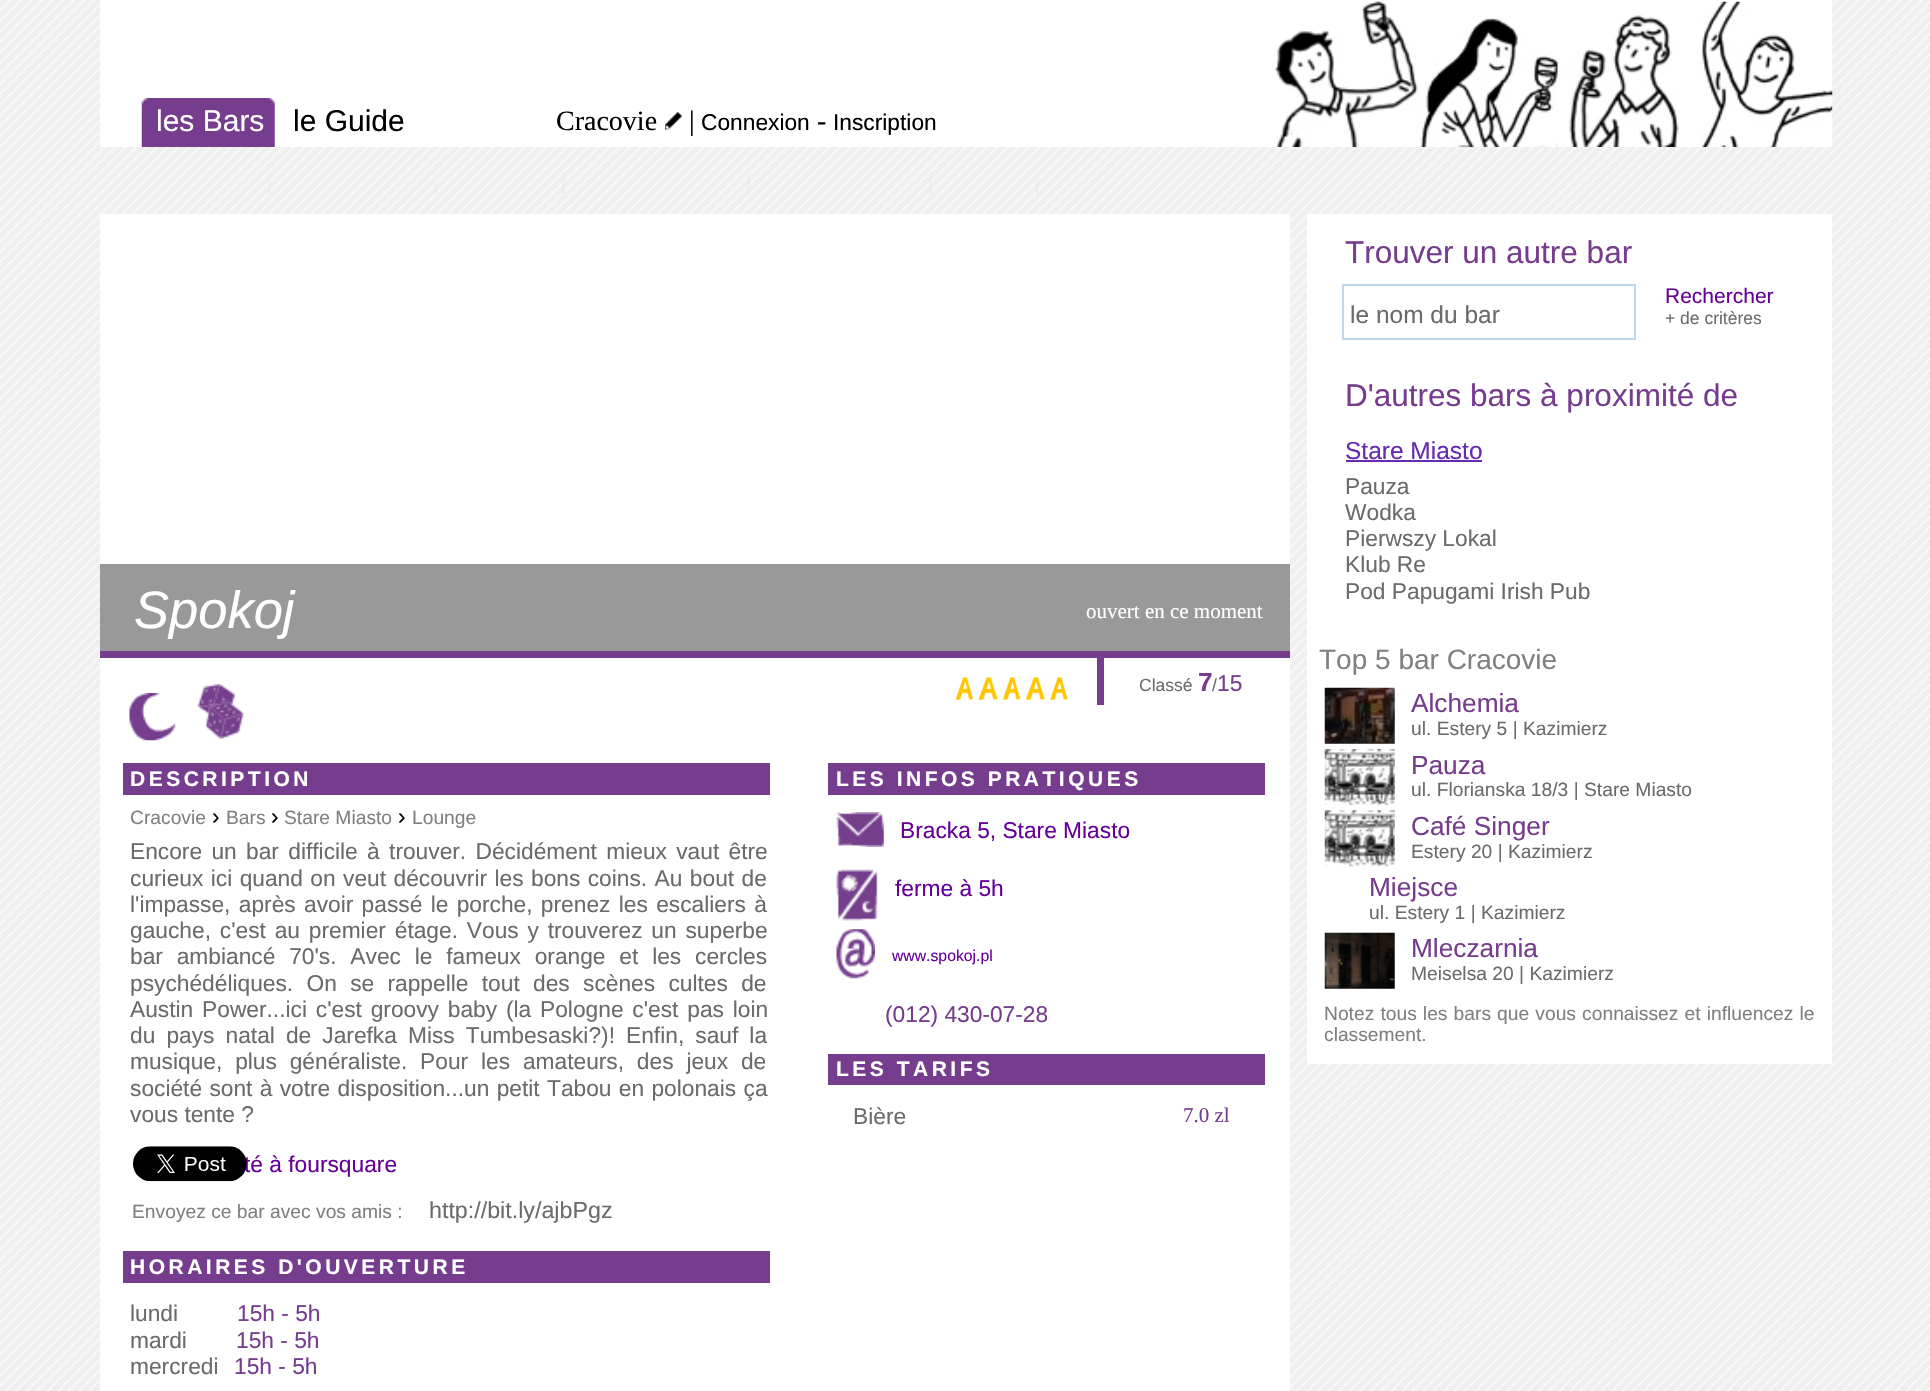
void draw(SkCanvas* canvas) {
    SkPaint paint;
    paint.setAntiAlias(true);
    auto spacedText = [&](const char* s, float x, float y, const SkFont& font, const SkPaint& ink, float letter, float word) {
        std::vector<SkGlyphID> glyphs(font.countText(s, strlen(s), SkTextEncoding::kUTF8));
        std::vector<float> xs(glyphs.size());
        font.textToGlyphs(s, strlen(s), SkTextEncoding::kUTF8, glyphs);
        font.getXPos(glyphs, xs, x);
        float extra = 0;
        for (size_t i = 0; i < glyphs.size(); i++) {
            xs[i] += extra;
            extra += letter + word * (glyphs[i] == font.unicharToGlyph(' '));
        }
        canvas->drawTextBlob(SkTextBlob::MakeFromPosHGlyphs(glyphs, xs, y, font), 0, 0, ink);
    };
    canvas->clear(0xFFFFFFFF);
    canvas->drawImageRect(SkImages::DeferredFromEncodedData(SkData::MakeFromFileName("img1.png")), SkRect::MakeXYWH(0, 0, 1930, 1391), SkSamplingOptions());
    paint.setColor(0xFFFFFFFF);
    canvas->drawRect(SkRect::MakeXYWH(100, 0, 1732, 147), paint);
    canvas->drawImageRect(SkImages::DeferredFromEncodedData(SkData::MakeFromFileName("img2.png")), SkRect::MakeXYWH(141, 98, 134, 49), SkSamplingOptions());
    SkFont font1(fontMgr->matchFamilyStyle("Liberation Sans", SkFontStyle::Normal()), 30);
    font1.setSubpixel(true);
    canvas->drawString("les Bars", 156, 131, font1, paint);
    paint.setColor(0xFF000000);
    canvas->drawString("le Guide", 293, 131, font1, paint);
    SkFont font2(fontMgr->matchFamilyStyle("Liberation Serif", SkFontStyle::Normal()), 28);
    font2.setSubpixel(true);
    canvas->drawString("Cracovie", 556, 130, font2, paint);
    canvas->drawImageRect(SkImages::DeferredFromEncodedData(SkData::MakeFromFileName("img3.png")), SkRect::MakeXYWH(665, 112, 18, 18), SkSamplingOptions());
    canvas->drawString("|", 689, 130, font2, paint);
    SkFont font3(fontMgr->matchFamilyStyle("Liberation Sans", SkFontStyle::Normal()), 22.75f);
    font3.setSubpixel(true);
    canvas->drawString("Connexion", 701, 130, font3, paint);
    canvas->drawString("-", 817, 130, font2, paint);
    canvas->drawString("Inscription", 833, 130, font3, paint);
    canvas->drawImageRect(SkImages::DeferredFromEncodedData(SkData::MakeFromFileName("img4.png")), SkRect::MakeXYWH(1275, 1, 558, 146), SkSamplingOptions());
    canvas->drawImageRect(SkImages::DeferredFromEncodedData(SkData::MakeFromFileName("img5.png")), SkRect::MakeXYWH(268, 172, 3, 22), SkSamplingOptions());
    canvas->drawImageRect(SkImages::DeferredFromEncodedData(SkData::MakeFromFileName("img6.png")), SkRect::MakeXYWH(434, 183, 3, 11), SkSamplingOptions());
    canvas->drawImageRect(SkImages::DeferredFromEncodedData(SkData::MakeFromFileName("img7.png")), SkRect::MakeXYWH(562, 172, 3, 22), SkSamplingOptions());
    canvas->drawImageRect(SkImages::DeferredFromEncodedData(SkData::MakeFromFileName("img8.png")), SkRect::MakeXYWH(747, 175, 3, 19), SkSamplingOptions());
    canvas->drawImageRect(SkImages::DeferredFromEncodedData(SkData::MakeFromFileName("img9.png")), SkRect::MakeXYWH(929, 172, 3, 22), SkSamplingOptions());
    canvas->drawImageRect(SkImages::DeferredFromEncodedData(SkData::MakeFromFileName("img10.png")), SkRect::MakeXYWH(1036, 179, 3, 15), SkSamplingOptions());
    paint.setColor(0xFFFFFFFF);
    canvas->drawRect(SkRect::MakeXYWH(100, 214, 1190, 1177), paint);
    paint.setColor(0xFF999999);
    canvas->drawRect(SkRect::MakeXYWH(100, 564, 1190, 87), paint);
    SkFont font4(fontMgr->matchFamilyStyle("Liberation Sans", SkFontStyle::Italic()), 52.5f);
    font4.setSubpixel(true);
    paint.setColor(0xFFFFFFFF);
    canvas->drawString("Spokoj", 134, 628, font4, paint);
    SkFont font5(fontMgr->matchFamilyStyle("Liberation Serif", SkFontStyle::Normal()), 21);
    font5.setSubpixel(true);
    canvas->drawString("ouvert en ce moment", 1086, 618, font5, paint);
    paint.setColor(0xFF763D8E);
    canvas->drawRect(SkRect::MakeXYWH(100, 651, 1190, 7), paint);
    canvas->drawImageRect(SkImages::DeferredFromEncodedData(SkData::MakeFromFileName("img11.png")), SkRect::MakeXYWH(129, 693, 47, 48), SkSamplingOptions());
    canvas->drawImageRect(SkImages::DeferredFromEncodedData(SkData::MakeFromFileName("img12.png")), SkRect::MakeXYWH(197, 683, 47, 56), SkSamplingOptions());
    canvas->drawImageRect(SkImages::DeferredFromEncodedData(SkData::MakeFromFileName("img13.png")), SkRect::MakeXYWH(955, 677, 18, 23), SkSamplingOptions());
    canvas->drawImageRect(SkImages::DeferredFromEncodedData(SkData::MakeFromFileName("img14.png")), SkRect::MakeXYWH(978, 677, 20, 23), SkSamplingOptions());
    canvas->drawImageRect(SkImages::DeferredFromEncodedData(SkData::MakeFromFileName("img15.png")), SkRect::MakeXYWH(1002, 677, 19, 23), SkSamplingOptions());
    canvas->drawImageRect(SkImages::DeferredFromEncodedData(SkData::MakeFromFileName("img16.png")), SkRect::MakeXYWH(1025, 677, 20, 23), SkSamplingOptions());
    canvas->drawImageRect(SkImages::DeferredFromEncodedData(SkData::MakeFromFileName("img17.png")), SkRect::MakeXYWH(1050, 677, 18, 23), SkSamplingOptions());
    canvas->drawRect(SkRect::MakeXYWH(1097, 658, 7, 47), paint);
    SkFont font6(fontMgr->matchFamilyStyle("Liberation Sans", SkFontStyle::Normal()), 17.5f);
    font6.setSubpixel(true);
    paint.setColor(0xFF6B6B6B);
    canvas->drawString("Classé", 1139, 691, font6, paint);
    SkFont font7(fontMgr->matchFamilyStyle("Liberation Sans", SkFontStyle::Bold()), 26.25f);
    font7.setSubpixel(true);
    paint.setColor(0xFF763D8E);
    canvas->drawString("7", 1198, 691, font7, paint);
    paint.setColor(0xFF6B6B6B);
    canvas->drawString("/", 1212, 691, font6, paint);
    paint.setColor(0xFF763D8E);
    canvas->drawString("15", 1217, 691, font3, paint);
    canvas->drawRect(SkRect::MakeXYWH(123, 763, 647, 32), paint);
    SkFont font8(fontMgr->matchFamilyStyle("Liberation Sans", SkFontStyle::Bold()), 21);
    font8.setSubpixel(true);
    paint.setColor(0xFFFFFFFF);
    spacedText("DESCRIPTION", 130, 786, font8, paint, 3.5f, 0);
    SkFont font9(fontMgr->matchFamilyStyle("Liberation Sans", SkFontStyle::Normal()), 19.25f);
    font9.setSubpixel(true);
    paint.setColor(0xFF808080);
    canvas->drawString("Cracovie", 130, 824, font9, paint);
    paint.setColor(0xFF000000);
    canvas->drawString("›", 212, 824, font3, paint);
    paint.setColor(0xFF808080);
    canvas->drawString("Bars", 226, 824, font9, paint);
    paint.setColor(0xFF000000);
    canvas->drawString("›", 271, 824, font3, paint);
    paint.setColor(0xFF808080);
    canvas->drawString("Stare Miasto", 284, 824, font9, paint);
    paint.setColor(0xFF000000);
    canvas->drawString("›", 398, 824, font3, paint);
    paint.setColor(0xFF808080);
    canvas->drawString("Lounge", 412, 824, font9, paint);
    paint.setColor(0xFF6B6B6B);
    spacedText("Encore un bar difficile à trouver. Décidément mieux vaut être", 130, 859, font3, paint, 0, 3);
    spacedText("curieux ici quand on veut découvrir les bons coins. Au bout de", 130, 886, font3, paint, 0, 1.1f);
    spacedText("l'impasse, après avoir passé le porche, prenez les escaliers à", 130, 912, font3, paint, 0, 2);
    spacedText("gauche, c'est au premier étage. Vous y trouverez un superbe", 130, 938, font3, paint, 0, 2.5f);
    spacedText("bar ambiancé 70's. Avec le fameux orange et les cercles", 130, 964, font3, paint, 0, 7.5f);
    spacedText("psychédéliques. On se rappelle tout des scènes cultes de", 130, 991, font3, paint, 0, 7);
    spacedText("Austin Power...ici c'est groovy baby (la Pologne c'est pas loin", 130, 1017, font3, paint, 0, 2.5f);
    spacedText("du pays natal de Jarefka Miss Tumbesaski?)! Enfin, sauf la", 130, 1043, font3, paint, 0, 4.75f);
    spacedText("musique, plus généraliste. Pour les amateurs, des jeux de", 130, 1069, font3, paint, 0, 6.5f);
    spacedText("société sont à votre disposition...un petit Tabou en polonais ça", 130, 1096, font3, paint, 0, 1);
    canvas->drawString("vous tente ?", 130, 1122, font3, paint);
    paint.setColor(0xFF660099);
    canvas->drawString("té à foursquare", 244, 1172, font3, paint);
    canvas->drawImageRect(SkImages::DeferredFromEncodedData(SkData::MakeFromFileName("img18.png")), SkRect::MakeXYWH(133, 1146, 114, 36), SkSamplingOptions());
    paint.setColor(0xFF808080);
    canvas->drawString("Envoyez ce bar avec vos amis :", 132, 1218, font9, paint);
    SkFont font10(fontMgr->matchFamilyStyle("Liberation Sans", SkFontStyle::Normal()), 23.25f);
    font10.setSubpixel(true);
    paint.setColor(0xFF6B6B6B);
    canvas->drawString("http://bit.ly/ajbPgz", 429, 1218, font10, paint);
    paint.setColor(0xFF763D8E);
    canvas->drawRect(SkRect::MakeXYWH(123, 1251, 647, 32), paint);
    paint.setColor(0xFFFFFFFF);
    spacedText("HORAIRES D'OUVERTURE", 130, 1274, font8, paint, 3.5f, 0);
    paint.setColor(0xFF6B6B6B);
    canvas->drawString("lundi", 130, 1321, font3, paint);
    paint.setColor(0xFF763D8E);
    canvas->drawString("15h - 5h", 237, 1321, font3, paint);
    paint.setColor(0xFF6B6B6B);
    canvas->drawString("mardi", 130, 1348, font3, paint);
    paint.setColor(0xFF763D8E);
    canvas->drawString("15h - 5h", 236, 1348, font3, paint);
    paint.setColor(0xFF6B6B6B);
    canvas->drawString("mercredi", 130, 1374, font3, paint);
    paint.setColor(0xFF763D8E);
    canvas->drawString("15h - 5h", 234, 1374, font3, paint);
    canvas->drawRect(SkRect::MakeXYWH(828, 763, 437, 32), paint);
    paint.setColor(0xFFFFFFFF);
    spacedText("LES INFOS PRATIQUES", 836, 786, font8, paint, 3.5f, 0);
    canvas->drawImageRect(SkImages::DeferredFromEncodedData(SkData::MakeFromFileName("img19.png")), SkRect::MakeXYWH(836, 812, 48, 35), SkSamplingOptions());
    paint.setColor(0xFF660099);
    canvas->drawString("Bracka 5, Stare Miasto", 900, 838, font3, paint);
    canvas->drawImageRect(SkImages::DeferredFromEncodedData(SkData::MakeFromFileName("img20.png")), SkRect::MakeXYWH(836, 869, 42, 52), SkSamplingOptions());
    canvas->drawString("ferme à 5h", 895, 896, font3, paint);
    canvas->drawImageRect(SkImages::DeferredFromEncodedData(SkData::MakeFromFileName("img21.png")), SkRect::MakeXYWH(836, 929, 39, 50), SkSamplingOptions());
    SkFont font11(fontMgr->matchFamilyStyle("Liberation Sans", SkFontStyle::Normal()), 15.75f);
    font11.setSubpixel(true);
    canvas->drawString("www.spokoj.pl", 892, 961, font11, paint);
    paint.setColor(0xFF763D8E);
    canvas->drawString("(012) 430-07-28", 885, 1022, font3, paint);
    canvas->drawRect(SkRect::MakeXYWH(828, 1054, 437, 31), paint);
    paint.setColor(0xFFFFFFFF);
    spacedText("LES TARIFS", 836, 1076, font8, paint, 3.5f, 0);
    paint.setColor(0xFF6B6B6B);
    canvas->drawString("Bière", 853, 1124, font3, paint);
    paint.setColor(0xFF763D8E);
    canvas->drawString("7.0 zl", 1183, 1122, font5, paint);
    paint.setColor(0xFFFFFFFF);
    canvas->drawRect(SkRect::MakeXYWH(1307, 214, 525, 850), paint);
    SkFont font12(fontMgr->matchFamilyStyle("Liberation Sans", SkFontStyle::Normal()), 31.5f);
    font12.setSubpixel(true);
    paint.setColor(0xFF763D8E);
    canvas->drawString("Trouver un autre bar", 1345, 263, font12, paint);
    paint.setStyle(SkPaint::kStroke_Style);
    paint.setStrokeWidth(2);
    paint.setColor(0xFFBFD7ED);
    canvas->drawRect(SkRect::MakeXYWH(1343, 285, 292, 54), paint);
    SkFont font13(fontMgr->matchFamilyStyle("Liberation Sans", SkFontStyle::Normal()), 24.5f);
    font13.setSubpixel(true);
    paint.setStyle(SkPaint::kFill_Style);
    paint.setColor(0xFF6B6B6B);
    canvas->drawString("le nom du bar", 1350, 323, font13, paint);
    SkFont font14(fontMgr->matchFamilyStyle("Liberation Sans", SkFontStyle::Normal()), 21);
    font14.setSubpixel(true);
    paint.setColor(0xFF660099);
    canvas->drawString("Rechercher", 1665, 303, font14, paint);
    paint.setColor(0xFF6B6B6B);
    canvas->drawString("+ de critères", 1665, 324, font6, paint);
    paint.setColor(0xFF763D8E);
    canvas->drawString("D'autres bars à proximité de", 1345, 406, font12, paint);
    paint.setColor(0xFF6728B2);
    canvas->drawString("Stare Miasto", 1345, 459, font13, paint);
    canvas->drawRect(SkRect::MakeXYWH(1346, 460, 136, 2), paint);
    paint.setColor(0xFF6B6B6B);
    canvas->drawString("Pauza", 1345, 494, font3, paint);
    canvas->drawString("Wodka", 1345, 520, font3, paint);
    canvas->drawString("Pierwszy Lokal", 1345, 546, font3, paint);
    canvas->drawString("Klub Re", 1345, 572, font3, paint);
    canvas->drawString("Pod Papugami Irish Pub", 1345, 599, font3, paint);
    SkFont font15(fontMgr->matchFamilyStyle("Liberation Sans", SkFontStyle::Normal()), 28);
    font15.setSubpixel(true);
    paint.setColor(0xFF808080);
    canvas->drawString("Top 5 bar Cracovie", 1319, 669, font15, paint);
    canvas->drawImageRect(SkImages::DeferredFromEncodedData(SkData::MakeFromFileName("img22.png")), SkRect::MakeXYWH(1324, 687, 71, 57), SkSamplingOptions());
    SkFont font16(fontMgr->matchFamilyStyle("Liberation Sans", SkFontStyle::Normal()), 26.25f);
    font16.setSubpixel(true);
    paint.setColor(0xFF763D8E);
    canvas->drawString("Alchemia", 1411, 712, font16, paint);
    paint.setColor(0xFF6B6B6B);
    canvas->drawString("ul. Estery 5 | Kazimierz", 1411, 735, font9, paint);
    canvas->drawImageRect(SkImages::DeferredFromEncodedData(SkData::MakeFromFileName("img23.png")), SkRect::MakeXYWH(1324, 749, 71, 56), SkSamplingOptions());
    paint.setColor(0xFF763D8E);
    canvas->drawString("Pauza", 1411, 774, font16, paint);
    paint.setColor(0xFF6B6B6B);
    canvas->drawString("ul. Florianska 18/3 | Stare Miasto", 1411, 796, font9, paint);
    canvas->drawImageRect(SkImages::DeferredFromEncodedData(SkData::MakeFromFileName("img24.png")), SkRect::MakeXYWH(1324, 810, 71, 57), SkSamplingOptions());
    paint.setColor(0xFF763D8E);
    canvas->drawString("Café Singer", 1411, 835, font16, paint);
    paint.setColor(0xFF6B6B6B);
    canvas->drawString("Estery 20 | Kazimierz", 1411, 858, font9, paint);
    paint.setColor(0xFF763D8E);
    canvas->drawString("Miejsce", 1369, 896, font16, paint);
    paint.setColor(0xFF6B6B6B);
    canvas->drawString("ul. Estery 1 | Kazimierz", 1369, 919, font9, paint);
    canvas->drawImageRect(SkImages::DeferredFromEncodedData(SkData::MakeFromFileName("img25.png")), SkRect::MakeXYWH(1324, 932, 71, 57), SkSamplingOptions());
    paint.setColor(0xFF763D8E);
    canvas->drawString("Mleczarnia", 1411, 957, font16, paint);
    paint.setColor(0xFF6B6B6B);
    canvas->drawString("Meiselsa 20 | Kazimierz", 1411, 980, font9, paint);
    paint.setColor(0xFF808080);
    spacedText("Notez tous les bars que vous connaissez et influencez le", 1324, 1020, font9, paint, 0, 0.75f);
    canvas->drawString("classement.", 1324, 1041, font9, paint);
}
